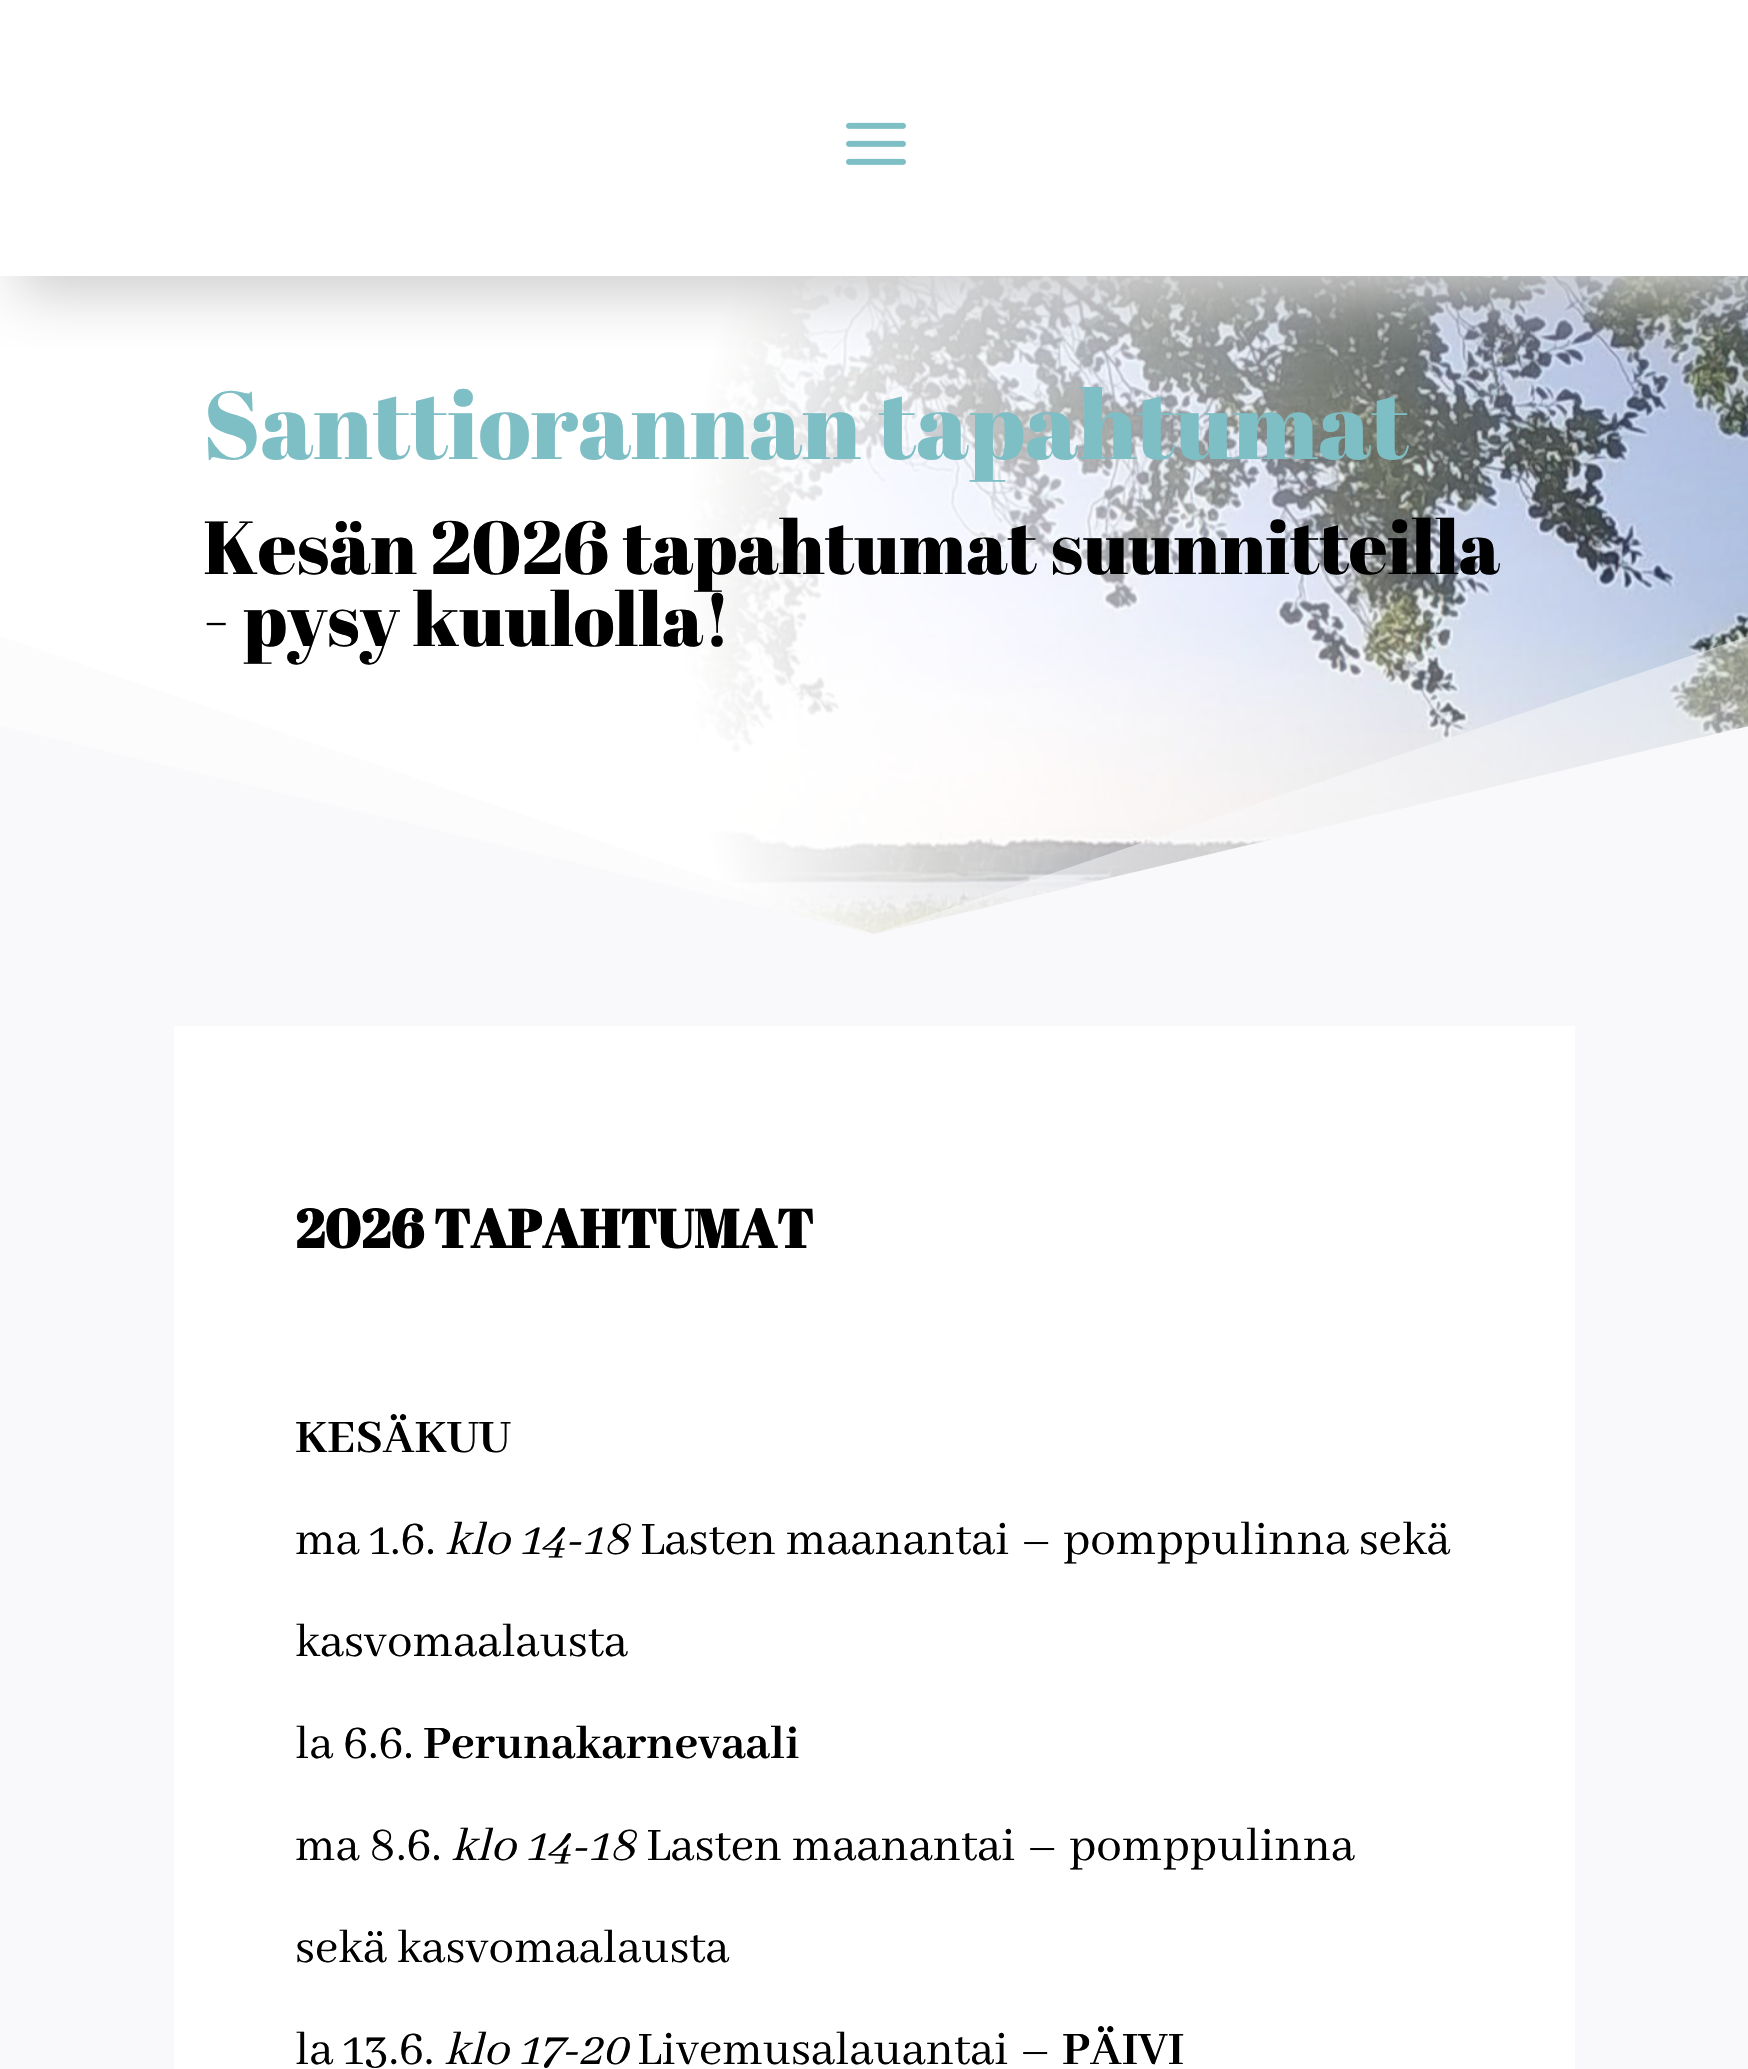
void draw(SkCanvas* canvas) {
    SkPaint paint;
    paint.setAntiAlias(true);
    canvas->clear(0xFFFFFFFF);
    canvas->drawImageRect(SkImages::DeferredFromEncodedData(SkData::MakeFromFileName("img2.png")), SkRect::MakeXYWH(0, 276, 1748, 658), SkSamplingOptions());
    canvas->save();
    canvas->clipRect(SkRect::MakeXYWH(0, 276, 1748, 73));
    paint.setColor(0xFFCECECE);
    paint.setMaskFilter(SkMaskFilter::MakeBlur(kNormal_SkBlurStyle, 27));
    canvas->drawRect(SkRect::MakeXYWH(18, 18, 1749, 276), paint);
    paint.setMaskFilter(nullptr);
    canvas->restore();
    canvas->drawImageRect(SkImages::DeferredFromEncodedData(SkData::MakeFromFileName("img1.png")), SkRect::MakeXYWH(846, 122, 60, 43), SkSamplingOptions());
    SkFont font1(fontMgr->matchFamilyStyle("Abril Fatface", SkFontStyle::Normal()), 96);
    font1.setSubpixel(true);
    paint.setColor(0xFF7EBEC5);
    canvas->drawString("Santtiorannan tapahtumat", 203, 459, font1, paint);
    SkFont font2(fontMgr->matchFamilyStyle("Abril Fatface", SkFontStyle::Normal()), 75);
    font2.setSubpixel(true);
    paint.setColor(0xFF000000);
    canvas->drawString("Kesän 2026 tapahtumat suunnitteilla", 203, 574, font2, paint);
    canvas->drawString("- pysy kuulolla!", 203, 646, font2, paint);
    paint.setColor(0x80F9F9FB);
    canvas->drawPath(SkPathBuilder().moveTo(874, 934).lineTo(0, 636).lineTo(0, 936).lineTo(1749, 936).lineTo(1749, 636).close().detach(), paint);
    paint.setColor(0xFFF9F9FB);
    canvas->drawPath(SkPathBuilder().moveTo(874, 934).lineTo(0, 726).lineTo(0, 936).lineTo(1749, 936).lineTo(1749, 726).close().detach(), paint);
    canvas->drawRect(SkRect::MakeXYWH(0, 936, 1748, 1133), paint);
    paint.setColor(0xFFFFFFFF);
    canvas->drawRect(SkRect::MakeXYWH(174, 1026, 1401, 1043), paint);
    SkFont font3(fontMgr->matchFamilyStyle("Abril Fatface", SkFontStyle::Bold()), 54);
    font3.setSubpixel(true);
    paint.setColor(0xFF000000);
    canvas->drawString("2026 TAPAHTUMAT", 295, 1248, font3, paint);
    SkFont font4(fontMgr->matchFamilyStyle("Abhaya Libre", SkFontStyle::Bold()), 51);
    font4.setSubpixel(true);
    canvas->drawString("KESÄKUU", 295, 1452, font4, paint);
    SkFont font5(fontMgr->matchFamilyStyle("Abhaya Libre", SkFontStyle::Normal()), 51);
    font5.setSubpixel(true);
    canvas->drawString("ma 1.6.", 295, 1554, font5, paint);
    SkFont font6(fontMgr->matchFamilyStyle("Abhaya Libre", SkFontStyle::Italic()), 51);
    font6.setSubpixel(true);
    canvas->drawString("klo 14-18", 445, 1554, font6, paint);
    canvas->drawString("Lasten maanantai – pomppulinna sekä", 640, 1554, font5, paint);
    canvas->drawString("kasvomaalausta", 295, 1656, font5, paint);
    canvas->drawString("la 6.6.", 295, 1758, font5, paint);
    canvas->drawString("Perunakarnevaali", 423, 1758, font4, paint);
    canvas->drawString("ma 8.6.", 295, 1860, font5, paint);
    canvas->drawString("klo 14-18", 451, 1860, font6, paint);
    canvas->drawString("Lasten maanantai – pomppulinna", 646, 1860, font5, paint);
    canvas->drawString("sekä kasvomaalausta", 295, 1962, font5, paint);
    canvas->drawString("la 13.6.", 295, 2064, font5, paint);
    canvas->drawString("klo 17-20", 444, 2064, font6, paint);
    canvas->drawString("Livemusalauantai –", 637, 2064, font5, paint);
    canvas->drawString("PÄIVI", 1062, 2064, font4, paint);
}
